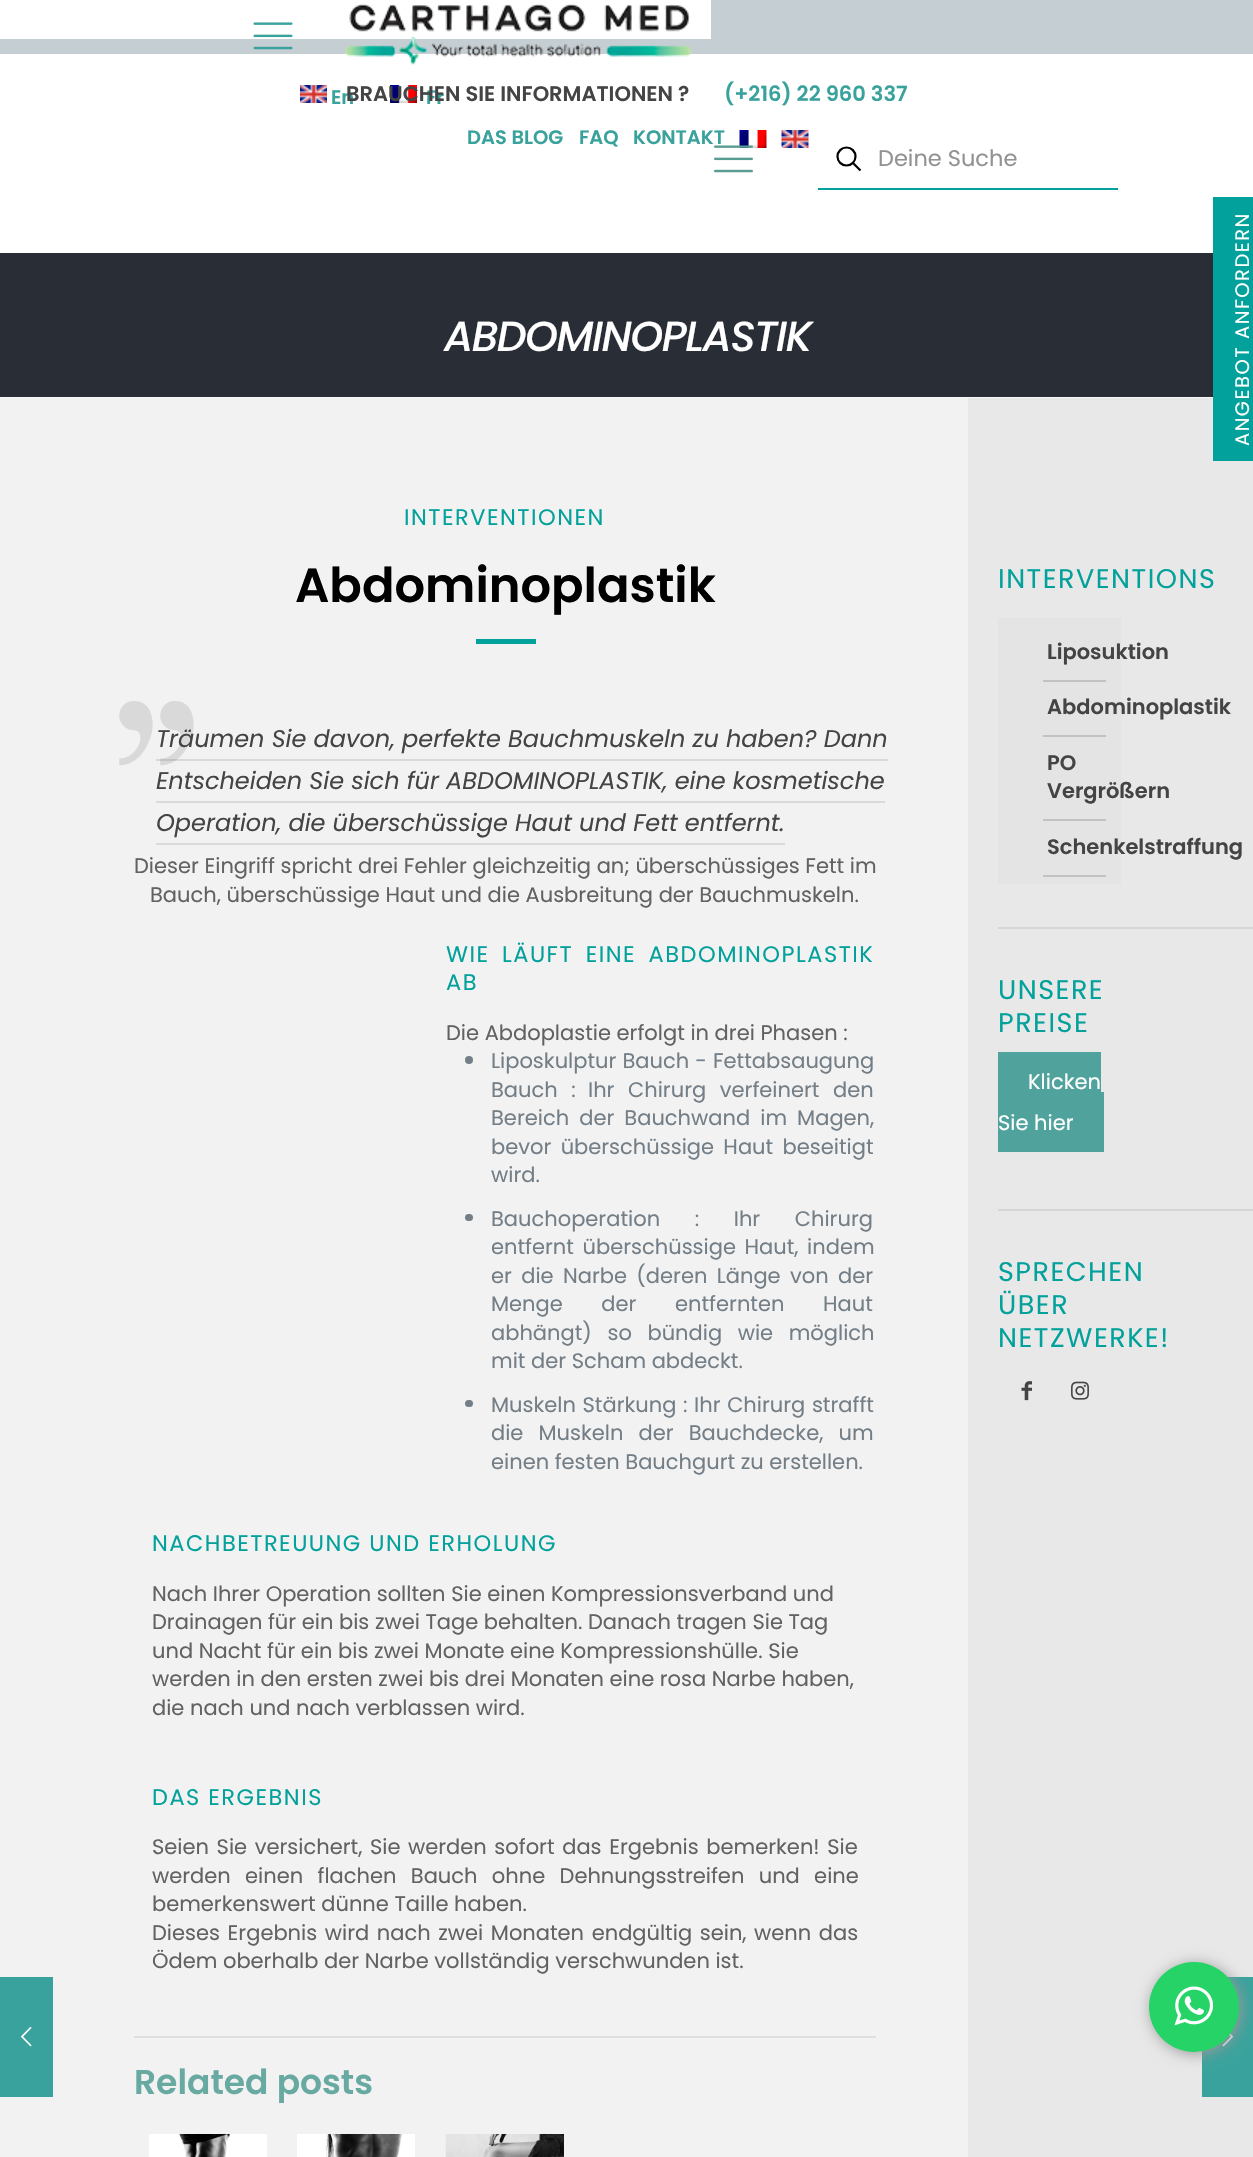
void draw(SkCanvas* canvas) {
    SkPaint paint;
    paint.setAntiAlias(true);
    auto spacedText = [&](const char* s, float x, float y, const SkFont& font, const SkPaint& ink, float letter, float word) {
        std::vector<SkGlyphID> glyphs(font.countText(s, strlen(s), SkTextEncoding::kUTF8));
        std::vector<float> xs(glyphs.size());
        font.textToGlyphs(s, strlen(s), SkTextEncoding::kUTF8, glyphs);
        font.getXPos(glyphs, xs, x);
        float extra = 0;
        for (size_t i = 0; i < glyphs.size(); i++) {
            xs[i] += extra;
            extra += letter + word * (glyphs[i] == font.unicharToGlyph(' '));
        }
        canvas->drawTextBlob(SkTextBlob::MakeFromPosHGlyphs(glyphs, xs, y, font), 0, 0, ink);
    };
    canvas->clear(0xFFF2F2F2);
    paint.setColor(0xFFC5CED2);
    canvas->drawRect(SkRect::MakeXYWH(0, 0, 1253, 54), paint);
    paint.setColor(0xFFFFFFFF);
    canvas->drawRect(SkRect::MakeXYWH(0, 54, 1253, 199), paint);
    SkFont font1(fontMgr->matchFamilyStyle("Poppins", SkFontStyle(600, SkFontStyle::kNormal_Width, SkFontStyle::kUpright_Slant)), 19.5f);
    font1.setSubpixel(true);
    paint.setColor(0xFF3AA29C);
    canvas->drawString("En", 331, 104, font1, paint);
    canvas->drawImageRect(SkImages::DeferredFromEncodedData(SkData::MakeFromFileName("img4.png")), SkRect::MakeXYWH(390, 85, 27, 18), SkSamplingOptions());
    canvas->drawString("Fr", 426, 104, font1, paint);
    SkFont font2(fontMgr->matchFamilyStyle("Poppins", SkFontStyle(600, SkFontStyle::kNormal_Width, SkFontStyle::kUpright_Slant)), 21);
    font2.setSubpixel(true);
    paint.setColor(0xFF444444);
    canvas->drawString("BRAUCHEN SIE INFORMATIONEN ?", 346, 101, font2, paint);
    paint.setColor(0xFF3AA29C);
    canvas->drawString("(+216) 22 960 337", 724, 101, font2, paint);
    paint.setColor(0xFFFFFFFF);
    canvas->drawRect(SkRect::MakeXYWH(0, 0, 711, 39), paint);
    canvas->drawImageRect(SkImages::DeferredFromEncodedData(SkData::MakeFromFileName("img1.png")), SkRect::MakeXYWH(253, 22, 40, 28), SkSamplingOptions());
    canvas->drawImageRect(SkImages::DeferredFromEncodedData(SkData::MakeFromFileName("img2.png")), SkRect::MakeXYWH(345, 3, 347, 62), SkSamplingOptions());
    canvas->drawImageRect(SkImages::DeferredFromEncodedData(SkData::MakeFromFileName("img3.png")), SkRect::MakeXYWH(300, 85, 27, 18), SkSamplingOptions());
    paint.setColor(0xFF3AA29C);
    canvas->drawString("DAS BLOG", 467, 144, font1, paint);
    canvas->drawString("FAQ", 579, 144, font1, paint);
    canvas->drawString("KONTAKT", 633, 144, font1, paint);
    canvas->drawImageRect(SkImages::DeferredFromEncodedData(SkData::MakeFromFileName("img5.png")), SkRect::MakeXYWH(739, 130, 28, 18), SkSamplingOptions());
    canvas->drawImageRect(SkImages::DeferredFromEncodedData(SkData::MakeFromFileName("img6.png")), SkRect::MakeXYWH(781, 130, 28, 18), SkSamplingOptions());
    canvas->drawImageRect(SkImages::DeferredFromEncodedData(SkData::MakeFromFileName("img7.png")), SkRect::MakeXYWH(714, 145, 39, 28), SkSamplingOptions());
    paint.setStyle(SkPaint::kStroke_Style);
    paint.setStrokeWidth(2.2f);
    paint.setColor(0xFF000000);
    canvas->drawCircle(846.5f, 156.5f, 9, paint);
    canvas->drawPath(SkPathBuilder().moveTo(853, 163).lineTo(860.5f, 170.5f).detach(), paint);
    paint.setStyle(SkPaint::kFill_Style);
    paint.setColor(0xFF02A19B);
    canvas->drawRect(SkRect::MakeXYWH(818, 188, 300, 2), paint);
    SkFont font3(fontMgr->matchFamilyStyle("Poppins", SkFontStyle::Normal()), 22.5f);
    font3.setSubpixel(true);
    paint.setColor(0xFF929292);
    canvas->drawString("Deine Suche", 878, 166, font3, paint);
    paint.setColor(0xFFF7F7F7);
    canvas->drawRect(SkRect::MakeXYWH(0, 397, 1213, 1), paint);
    paint.setColor(0xFF292D36);
    canvas->drawRect(SkRect::MakeXYWH(0, 253, 1213, 144), paint);
    SkFont font4(fontMgr->matchFamilyStyle("Poppins", SkFontStyle(500, SkFontStyle::kNormal_Width, SkFontStyle::kItalic_Slant)), 42);
    font4.setSubpixel(true);
    paint.setColor(0xFFFFFFFF);
    spacedText("ABDOMINOPLASTIK", 444, 351, font4, paint, -1.5f, 0);
    paint.setColor(0xFF02A19B);
    spacedText("INTERVENTIONEN", 404, 525, font3, paint, 1.5f, 0);
    SkFont font5(fontMgr->matchFamilyStyle("Poppins", SkFontStyle(600, SkFontStyle::kNormal_Width, SkFontStyle::kUpright_Slant)), 48);
    font5.setSubpixel(true);
    paint.setColor(0xFF000000);
    canvas->drawString("Abdominoplastik", 295, 602, font5, paint);
    paint.setColor(0xFF02A19B);
    canvas->drawRect(SkRect::MakeXYWH(476, 639, 60, 5), paint);
    canvas->drawImageRect(SkImages::DeferredFromEncodedData(SkData::MakeFromFileName("img8.png")), SkRect::MakeXYWH(119, 701, 75, 65), SkSamplingOptions());
    SkFont font6(fontMgr->matchFamilyStyle("Poppins", SkFontStyle::Italic()), 24);
    font6.setSubpixel(true);
    paint.setColor(0xFF444444);
    canvas->drawString("Träumen Sie davon, perfekte Bauchmuskeln zu haben? Dann", 156, 747, font6, paint);
    paint.setColor(0x1A000000);
    canvas->drawRect(SkRect::MakeXYWH(156, 759, 732, 2), paint);
    paint.setColor(0xFF444444);
    canvas->drawString("Entscheiden Sie sich für ABDOMINOPLASTIK, eine kosmetische", 156, 789, font6, paint);
    paint.setColor(0xFFDADADA);
    canvas->drawRect(SkRect::MakeXYWH(156, 801, 729, 2), paint);
    paint.setColor(0xFF444444);
    canvas->drawString("Operation, die überschüssige Haut und Fett entfernt.", 156, 831, font6, paint);
    paint.setColor(0xFFDADADA);
    canvas->drawRect(SkRect::MakeXYWH(156, 843, 629, 2), paint);
    SkFont font7(fontMgr->matchFamilyStyle("Poppins", SkFontStyle::Normal()), 21);
    font7.setSubpixel(true);
    paint.setColor(0xFF626262);
    canvas->drawString("Dieser Eingriff spricht drei Fehler gleichzeitig an; überschüssiges Fett im", 134, 873, font7, paint);
    canvas->drawString("Bauch, überschüssige Haut und die Ausbreitung der Bauchmuskeln.", 150, 902, font7, paint);
    paint.setColor(0xFF02A19B);
    spacedText("WIE LÄUFT EINE ABDOMINOPLASTIK", 446, 962, font3, paint, 1.5f, 5);
    spacedText("AB", 446, 990, font3, paint, 1.5f, 0);
    paint.setColor(0xFF626262);
    canvas->drawString("Die Abdoplastie erfolgt in drei Phasen :", 446, 1040, font7, paint);
    paint.setColor(0xFF737E86);
    canvas->drawCircle(469, 1060, 4, paint);
    spacedText("Liposkulptur Bauch - Fettabsaugung", 491, 1068, font7, paint, 0, 0.5f);
    spacedText("Bauch :", 491, 1097, font7, paint, 0, 8);
    spacedText("Ihr Chirurg verfeinert den", 588, 1097, font7, paint, 0, 8);
    spacedText("Bereich der Bauchwand im Magen,", 491, 1125, font7, paint, 0, 4.5f);
    spacedText("bevor überschüssige Haut beseitigt", 491, 1154, font7, paint, 0, 3.75f);
    canvas->drawString("wird.", 491, 1182, font7, paint);
    canvas->drawRoundRect(SkRect::MakeXYWH(465, 1214, 8, 7), 3.5f, 3.5f, paint);
    spacedText("Bauchoperation : Ihr Chirurg", 491, 1226, font7, paint, 0, 29);
    spacedText("entfernt überschüssige Haut, indem", 491, 1254, font7, paint, 0, 3);
    spacedText("er die Narbe (deren Länge von der", 491, 1283, font7, paint, 0, 3.75f);
    spacedText("Menge der entfernten Haut", 491, 1311, font7, paint, 0, 33);
    spacedText("abhängt) so bündig wie möglich", 491, 1340, font7, paint, 0, 10);
    canvas->drawString("mit der Scham abdeckt.", 491, 1368, font7, paint);
    canvas->drawRoundRect(SkRect::MakeXYWH(465, 1400, 8, 7), 3.5f, 3.5f, paint);
    spacedText("Muskeln Stärkung : Ihr Chirurg strafft", 491, 1412, font7, paint, 0, 1);
    spacedText("die Muskeln der Bauchdecke, um", 491, 1440, font7, paint, 0, 9.5f);
    canvas->drawString("einen festen Bauchgurt zu erstellen.", 491, 1469, font7, paint);
    paint.setColor(0xFF02A19B);
    spacedText("NACHBETREUUNG UND ERHOLUNG", 152, 1551, font3, paint, 1.5f, 0);
    paint.setColor(0xFF626262);
    canvas->drawString("Nach Ihrer Operation sollten Sie einen Kompressionsverband und", 152, 1601, font7, paint);
    canvas->drawString("Drainagen für ein bis zwei Tage behalten. Danach tragen Sie Tag", 152, 1629, font7, paint);
    canvas->drawString("und Nacht für ein bis zwei Monate eine Kompressionshülle. Sie", 152, 1658, font7, paint);
    canvas->drawString("werden in den ersten zwei bis drei Monaten eine rosa Narbe haben,", 152, 1686, font7, paint);
    canvas->drawString("die nach und nach verblassen wird.", 152, 1715, font7, paint);
    paint.setColor(0xFF02A19B);
    spacedText("DAS ERGEBNIS", 152, 1805, font3, paint, 1.5f, 0);
    paint.setColor(0xFF626262);
    spacedText("Seien Sie versichert, Sie werden sofort das Ergebnis bemerken! Sie", 152, 1854, font7, paint, 0, 2);
    spacedText("werden einen flachen Bauch ohne Dehnungsstreifen und eine", 152, 1883, font7, paint, 0, 8.75f);
    canvas->drawString("bemerkenswert dünne Taille haben.", 152, 1911, font7, paint);
    spacedText("Dieses Ergebnis wird nach zwei Monaten endgültig sein, wenn das", 152, 1940, font7, paint, 0, 2);
    canvas->drawString("Ödem oberhalb der Narbe vollständig verschwunden ist.", 152, 1968, font7, paint);
    paint.setColor(0xFFDFDFDF);
    canvas->drawRect(SkRect::MakeXYWH(134, 2036, 742, 2), paint);
    SkFont font8(fontMgr->matchFamilyStyle("Poppins", SkFontStyle(600, SkFontStyle::kNormal_Width, SkFontStyle::kUpright_Slant)), 34.5f);
    font8.setSubpixel(true);
    paint.setColor(0xFF68AAA2);
    canvas->drawString("Related posts", 134, 2094, font8, paint);
    canvas->drawImageRect(SkImages::DeferredFromEncodedData(SkData::MakeFromFileName("img9.png")), SkRect::MakeXYWH(149, 2134, 118, 23), SkSamplingOptions());
    canvas->drawImageRect(SkImages::DeferredFromEncodedData(SkData::MakeFromFileName("img10.png")), SkRect::MakeXYWH(297, 2134, 118, 23), SkSamplingOptions());
    canvas->drawImageRect(SkImages::DeferredFromEncodedData(SkData::MakeFromFileName("img11.png")), SkRect::MakeXYWH(445, 2134, 119, 23), SkSamplingOptions());
    paint.setColor(0xFFE8E8E8);
    canvas->drawRect(SkRect::MakeXYWH(968, 398, 285, 1759), paint);
    SkFont font9(fontMgr->matchFamilyStyle("Poppins", SkFontStyle::Normal()), 27);
    font9.setSubpixel(true);
    paint.setColor(0xFF02A19B);
    spacedText("INTERVENTIONS", 998, 588, font9, paint, 1.5f, 0);
    paint.setColor(0xFFE4E4E4);
    canvas->drawRect(SkRect::MakeXYWH(998, 618, 123, 266), paint);
    paint.setColor(0xFFC2C2C2);
    canvas->drawRect(SkRect::MakeXYWH(1043, 680, 63, 2), paint);
    paint.setColor(0xFF444444);
    canvas->drawString("Liposuktion", 1047, 659, font2, paint);
    paint.setColor(0xFFC2C2C2);
    canvas->drawRect(SkRect::MakeXYWH(1043, 735, 63, 2), paint);
    paint.setColor(0xFF444444);
    canvas->drawString("Abdominoplastik", 1047, 714, font2, paint);
    paint.setColor(0xFFC2C2C2);
    canvas->drawRect(SkRect::MakeXYWH(1043, 819, 63, 2), paint);
    paint.setColor(0xFF444444);
    canvas->drawString("PO", 1047, 770, font2, paint);
    canvas->drawString("Vergrößern", 1047, 798, font2, paint);
    paint.setColor(0xFFC2C2C2);
    canvas->drawRect(SkRect::MakeXYWH(1043, 875, 63, 2), paint);
    paint.setColor(0xFF444444);
    canvas->drawString("Schenkelstraffung", 1047, 854, font2, paint);
    paint.setColor(0xFFD5D5D5);
    canvas->drawRect(SkRect::MakeXYWH(998, 927, 255, 2), paint);
    paint.setColor(0xFF02A19B);
    spacedText("UNSERE", 998, 999, font9, paint, 1.5f, 0);
    spacedText("PREISE", 998, 1032, font9, paint, 1.5f, 0);
    paint.setColor(0xFF4FA39C);
    canvas->drawRect(SkRect::MakeXYWH(998, 1052, 103, 40), paint);
    paint.setColor(0xFFFFFFFF);
    canvas->drawString("Klicken", 1028, 1089, font7, paint);
    paint.setColor(0xFF4FA39C);
    canvas->drawRect(SkRect::MakeXYWH(998, 1092, 106, 60), paint);
    paint.setColor(0xFFFFFFFF);
    canvas->drawString("Sie hier", 998, 1130, font7, paint);
    paint.setColor(0xFFD5D5D5);
    canvas->drawRect(SkRect::MakeXYWH(998, 1209, 255, 2), paint);
    paint.setColor(0xFF02A19B);
    spacedText("SPRECHEN", 998, 1281, font9, paint, 1.5f, 0);
    spacedText("ÜBER", 998, 1314, font9, paint, 1.5f, 0);
    spacedText("NETZWERKE!", 998, 1347, font9, paint, 1.5f, 0);
    canvas->drawImageRect(SkImages::DeferredFromEncodedData(SkData::MakeFromFileName("img12.png")), SkRect::MakeXYWH(1021, 1381, 11, 20), SkSamplingOptions());
    canvas->drawImageRect(SkImages::DeferredFromEncodedData(SkData::MakeFromFileName("img13.png")), SkRect::MakeXYWH(1071, 1381, 18, 19), SkSamplingOptions());
    canvas->drawRect(SkRect::MakeXYWH(1213, 197, 40, 264), paint);
    SkFont font10(fontMgr->matchFamilyStyle("Poppins", SkFontStyle::Normal()), 19.5f);
    font10.setSubpixel(true);
    paint.setColor(0xFFFFFFFF);
    canvas->save();
    canvas->rotate(-90, 1249, 446);
    spacedText("ANGEBOT ANFORDERN", 1249, 446, font10, paint, 1.5f, 0);
    canvas->restore();
    paint.setColor(0xFF3AA29C);
    canvas->drawRect(SkRect::MakeXYWH(0, 1977, 53, 120), paint);
    canvas->drawImageRect(SkImages::DeferredFromEncodedData(SkData::MakeFromFileName("img14.png")), SkRect::MakeXYWH(21, 2026, 11, 21), SkSamplingOptions());
    canvas->drawRect(SkRect::MakeXYWH(1202, 1977, 51, 120), paint);
    canvas->drawImageRect(SkImages::DeferredFromEncodedData(SkData::MakeFromFileName("img16.png")), SkRect::MakeXYWH(1222, 2033, 11, 14), SkSamplingOptions());
    paint.setColor(0xFF999999);
    paint.setMaskFilter(SkMaskFilter::MakeBlur(kNormal_SkBlurStyle, 7.5f));
    canvas->drawRoundRect(SkRect::MakeXYWH(1151, 1964, 90, 90), 45, 45, paint);
    paint.setMaskFilter(nullptr);
    paint.setColor(0xFF25D366);
    canvas->drawCircle(1194, 2007, 45, paint);
    canvas->drawImageRect(SkImages::DeferredFromEncodedData(SkData::MakeFromFileName("img15.png")), SkRect::MakeXYWH(1174, 1986, 40, 40), SkSamplingOptions());
}
